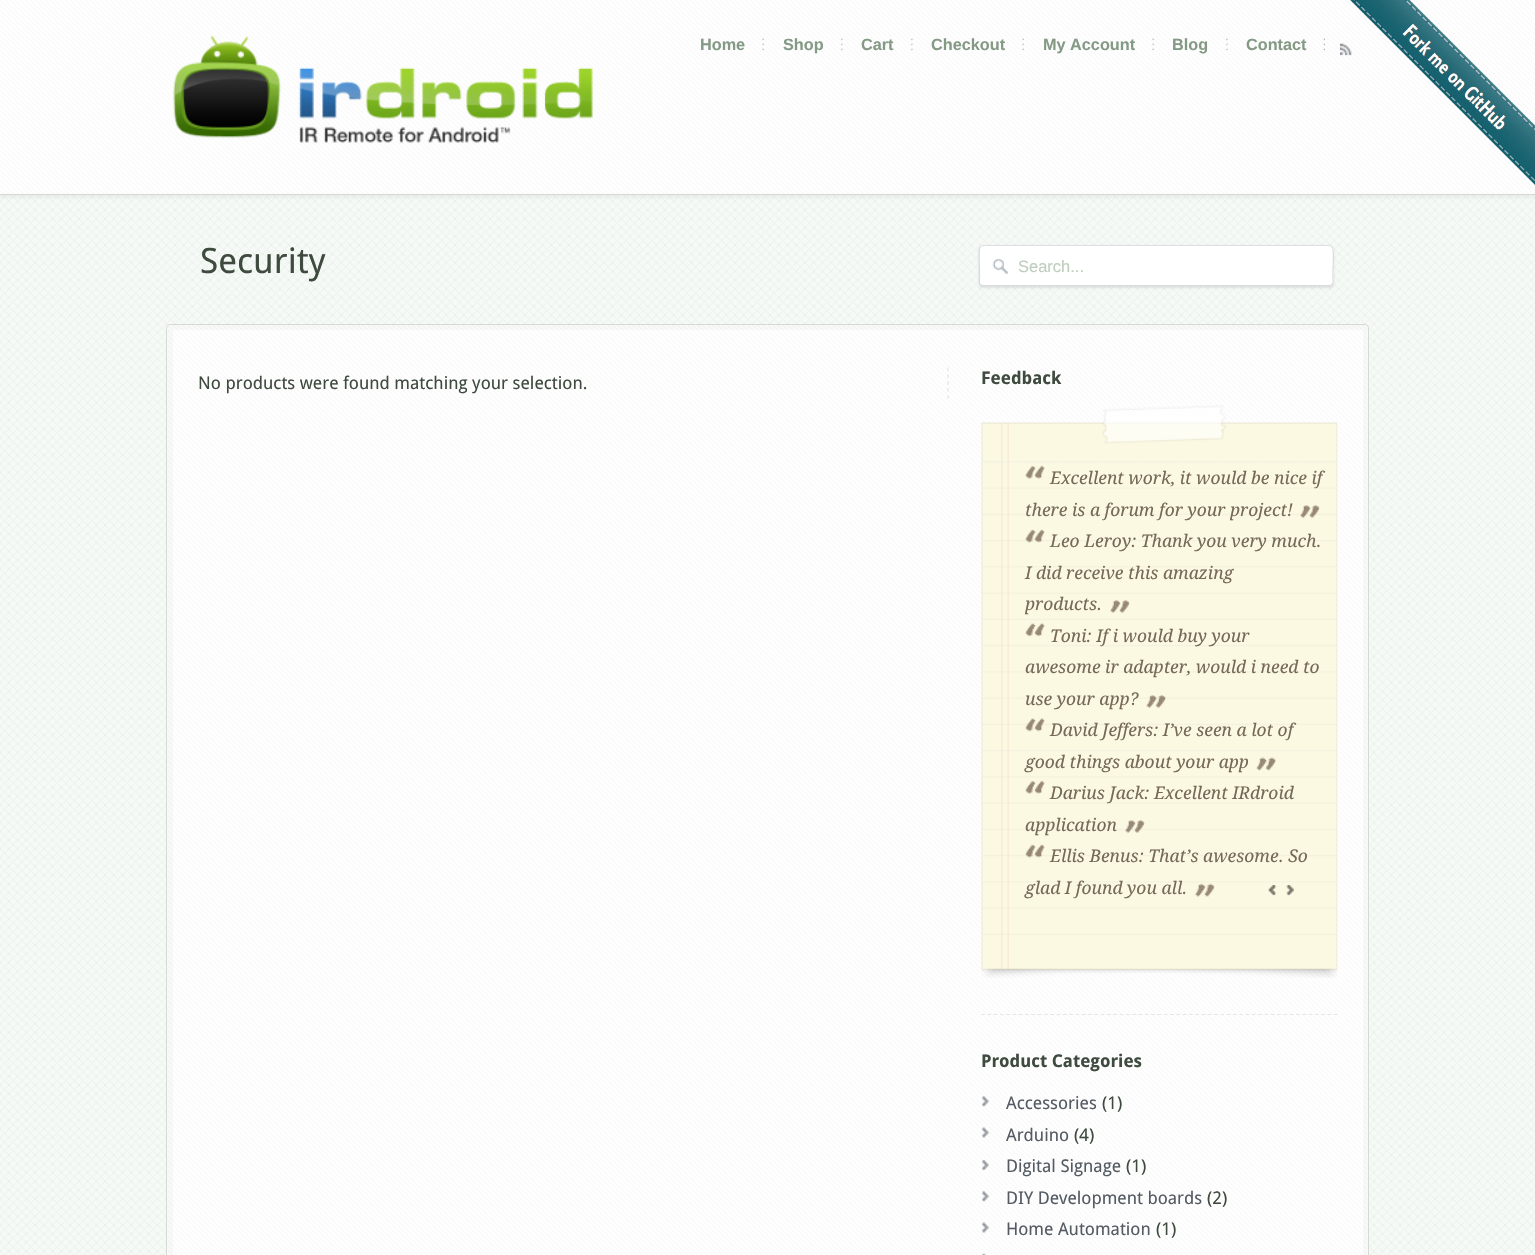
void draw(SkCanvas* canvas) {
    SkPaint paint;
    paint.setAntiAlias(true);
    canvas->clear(0xFFF6FAF6);
    canvas->drawImageRect(SkImages::DeferredFromEncodedData(SkData::MakeFromFileName("img1.png")), SkRect::MakeXYWH(0, 195, 1535, 1060), SkSamplingOptions());
    paint.setColor(0x0A000000);
    paint.setMaskFilter(SkMaskFilter::MakeBlur(kNormal_SkBlurStyle, 1));
    canvas->drawRect(SkRect::MakeXYWH(0, 3, 1535, 195), paint);
    paint.setMaskFilter(nullptr);
    paint.setColor(0xFFFFFFFF);
    canvas->drawRect(SkRect::MakeXYWH(0, 0, 1535, 194), paint);
    canvas->drawImageRect(SkImages::DeferredFromEncodedData(SkData::MakeFromFileName("img2.png")), SkRect::MakeXYWH(0, 0, 1535, 194), SkSamplingOptions());
    paint.setColor(0xFFD4DBD4);
    canvas->drawRect(SkRect::MakeXYWH(0, 194, 1535, 1), paint);
    canvas->drawImageRect(SkImages::DeferredFromEncodedData(SkData::MakeFromFileName("img3.png")), SkRect::MakeXYWH(172, 35, 421, 108), SkSamplingOptions());
    canvas->drawImageRect(SkImages::DeferredFromEncodedData(SkData::MakeFromFileName("img4.png")), SkRect::MakeXYWH(762, 38, 2, 13), SkSamplingOptions());
    SkFont font1(fontMgr->matchFamilyStyle("Liberation Sans", SkFontStyle::Bold()), 16.25f);
    font1.setSubpixel(true);
    paint.setColor(0xFF849A85);
    canvas->drawString("Home", 700, 50, font1, paint);
    canvas->drawImageRect(SkImages::DeferredFromEncodedData(SkData::MakeFromFileName("img5.png")), SkRect::MakeXYWH(841, 38, 2, 13), SkSamplingOptions());
    canvas->drawString("Shop", 783, 50, font1, paint);
    canvas->drawImageRect(SkImages::DeferredFromEncodedData(SkData::MakeFromFileName("img5.png")), SkRect::MakeXYWH(911, 38, 2, 13), SkSamplingOptions());
    canvas->drawString("Cart", 861, 50, font1, paint);
    canvas->drawImageRect(SkImages::DeferredFromEncodedData(SkData::MakeFromFileName("img4.png")), SkRect::MakeXYWH(1022, 38, 2, 13), SkSamplingOptions());
    canvas->drawString("Checkout", 931, 50, font1, paint);
    canvas->drawImageRect(SkImages::DeferredFromEncodedData(SkData::MakeFromFileName("img4.png")), SkRect::MakeXYWH(1152, 38, 2, 13), SkSamplingOptions());
    canvas->drawString("My Account", 1043, 50, font1, paint);
    canvas->drawImageRect(SkImages::DeferredFromEncodedData(SkData::MakeFromFileName("img5.png")), SkRect::MakeXYWH(1226, 38, 2, 13), SkSamplingOptions());
    canvas->drawString("Blog", 1172, 50, font1, paint);
    canvas->drawImageRect(SkImages::DeferredFromEncodedData(SkData::MakeFromFileName("img6.png")), SkRect::MakeXYWH(1323, 38, 2, 13), SkSamplingOptions());
    canvas->drawString("Contact", 1246, 50, font1, paint);
    canvas->drawImageRect(SkImages::DeferredFromEncodedData(SkData::MakeFromFileName("img8.png")), SkRect::MakeXYWH(1350, 0, 185, 185), SkSamplingOptions());
    canvas->drawImageRect(SkImages::DeferredFromEncodedData(SkData::MakeFromFileName("img7.png")), SkRect::MakeXYWH(1340, 43, 12, 13), SkSamplingOptions());
    SkFont font2(fontMgr->matchFamilyStyle("Droid Sans", SkFontStyle::Normal()), 35);
    font2.setSubpixel(true);
    paint.setColor(0xFF3F4B3F);
    canvas->drawString("Security", 200, 273, font2, paint);
    paint.setColor(0x17000000);
    paint.setMaskFilter(SkMaskFilter::MakeBlur(kNormal_SkBlurStyle, 1));
    canvas->drawRoundRect(SkRect::MakeXYWH(979, 246, 355, 42), 4, 4, paint);
    paint.setMaskFilter(nullptr);
    paint.setColor(0xFFFFFFFF);
    canvas->drawRoundRect(SkRect::MakeXYWH(979, 245, 355, 41), 4, 4, paint);
    paint.setStyle(SkPaint::kStroke_Style);
    paint.setStrokeWidth(1.2f);
    paint.setColor(0xFFDCE0E4);
    canvas->drawPath(SkPathBuilder().moveTo(980.5f, 246.5f).lineTo(982.5f, 245.5f).lineTo(1330, 245.5f).lineTo(1332, 246.5f).detach(), paint);
    paint.setColor(0xFFD7DBDE);
    canvas->drawPath(SkPathBuilder().moveTo(1332, 246.5f).cubicTo(1334.5f, 248.5f, 1333, 267.5f, 1333, 271).lineTo(1333, 277).cubicTo(1333, 279, 1334.5f, 285.5f, 1330, 285.5f).lineTo(982.5f, 285.5f).cubicTo(978, 285.5f, 979.5f, 279, 979.5f, 277).lineTo(979.5f, 271).cubicTo(979.5f, 267.5f, 978, 248.5f, 980.5f, 246.5f).detach(), paint);
    canvas->drawImageRect(SkImages::DeferredFromEncodedData(SkData::MakeFromFileName("img9.png")), SkRect::MakeXYWH(992, 258, 17, 16), SkSamplingOptions());
    SkFont font3(fontMgr->matchFamilyStyle("Liberation Sans", SkFontStyle::Normal()), 16.5f);
    font3.setSubpixel(true);
    paint.setStyle(SkPaint::kFill_Style);
    paint.setColor(0xFFBECEBD);
    canvas->drawString("Search...", 1018, 272, font3, paint);
    paint.setColor(0xFFF9F9F9);
    canvas->drawRoundRect(SkRect::MakeXYWH(166, 324, 1203, 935), 4, 4, paint);
    canvas->drawImageRect(SkImages::DeferredFromEncodedData(SkData::MakeFromFileName("img10.png")), SkRect::MakeXYWH(168, 325, 1199, 930), SkSamplingOptions());
    paint.setStyle(SkPaint::kStroke_Style);
    paint.setStrokeWidth(1);
    paint.setColor(0xFFD4DBD4);
    canvas->drawRoundRect(SkRect::MakeXYWH(166.5f, 324.5f, 1202, 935), 3.5f, 3.5f, paint);
    paint.setStyle(SkPaint::kFill_Style);
    paint.setColor(0xFFFFFFFF);
    canvas->drawRect(SkRect::MakeXYWH(173, 330, 1190, 925), paint);
    canvas->drawImageRect(SkImages::DeferredFromEncodedData(SkData::MakeFromFileName("img11.png")), SkRect::MakeXYWH(173, 330, 1189, 925), SkSamplingOptions());
    paint.setStyle(SkPaint::kStroke_Style);
    paint.setStrokeWidth(1.2f);
    paint.setColor(0xFFE5E5E5);
    paint.setPathEffect(SkDashPathEffect::Make({{3.75f, 3.12f}}, 0));
    canvas->drawPath(SkPathBuilder().moveTo(948, 367.5f).lineTo(948, 399).detach(), paint);
    paint.setPathEffect(nullptr);
    SkFont font4(fontMgr->matchFamilyStyle("Droid Sans", SkFontStyle::Normal()), 17.5f);
    font4.setSubpixel(true);
    paint.setStyle(SkPaint::kFill_Style);
    paint.setColor(0xFF3F4B3F);
    canvas->drawString("No products were found matching your selection.", 198, 389, font4, paint);
    paint.setStyle(SkPaint::kStroke_Style);
    paint.setColor(0xFFE5E5E5);
    paint.setPathEffect(SkDashPathEffect::Make({{3.75f, 2.55f}}, 0));
    canvas->drawPath(SkPathBuilder().moveTo(981, 1014.5f).lineTo(1337.5f, 1014.5f).detach(), paint);
    paint.setPathEffect(nullptr);
    SkFont font5(fontMgr->matchFamilyStyle("Droid Sans", SkFontStyle::Bold()), 17.5f);
    font5.setSubpixel(true);
    paint.setStyle(SkPaint::kFill_Style);
    paint.setColor(0xFF3F4B3F);
    canvas->drawString("Feedback", 981, 384, font5, paint);
    canvas->drawImageRect(SkImages::DeferredFromEncodedData(SkData::MakeFromFileName("img12.png")), SkRect::MakeXYWH(981, 405, 357, 58), SkSamplingOptions());
    canvas->drawImageRect(SkImages::DeferredFromEncodedData(SkData::MakeFromFileName("img13.png")), SkRect::MakeXYWH(981, 462, 357, 473), SkSamplingOptions());
    canvas->drawImageRect(SkImages::DeferredFromEncodedData(SkData::MakeFromFileName("img14.png")), SkRect::MakeXYWH(1025, 465, 20, 14), SkSamplingOptions());
    SkFont font6(fontMgr->matchFamilyStyle("Droid Serif", SkFontStyle::Italic()), 17.5f);
    font6.setSubpixel(true);
    paint.setColor(0xFF766958);
    canvas->drawString("Excellent work, it would be nice if", 1050, 484, font6, paint);
    canvas->drawString("there is a forum for your project!", 1025, 516, font6, paint);
    canvas->drawImageRect(SkImages::DeferredFromEncodedData(SkData::MakeFromFileName("img15.png")), SkRect::MakeXYWH(1300, 505, 20, 13), SkSamplingOptions());
    canvas->drawImageRect(SkImages::DeferredFromEncodedData(SkData::MakeFromFileName("img16.png")), SkRect::MakeXYWH(1025, 529, 20, 14), SkSamplingOptions());
    canvas->drawString("Leo Leroy: Thank you very much.", 1050, 547, font6, paint);
    canvas->drawString("I did receive this amazing", 1025, 579, font6, paint);
    canvas->drawString("products.", 1025, 610, font6, paint);
    canvas->drawImageRect(SkImages::DeferredFromEncodedData(SkData::MakeFromFileName("img17.png")), SkRect::MakeXYWH(1110, 600, 20, 13), SkSamplingOptions());
    canvas->drawImageRect(SkImages::DeferredFromEncodedData(SkData::MakeFromFileName("img18.png")), SkRect::MakeXYWH(1025, 623, 20, 14), SkSamplingOptions());
    canvas->drawString("Toni: If i would buy your", 1050, 642, font6, paint);
    canvas->drawString("awesome ir adapter, would i need to", 1025, 673, font6, paint);
    canvas->drawString("use your app?", 1025, 705, font6, paint);
    canvas->drawImageRect(SkImages::DeferredFromEncodedData(SkData::MakeFromFileName("img19.png")), SkRect::MakeXYWH(1146, 695, 20, 13), SkSamplingOptions());
    canvas->drawImageRect(SkImages::DeferredFromEncodedData(SkData::MakeFromFileName("img20.png")), SkRect::MakeXYWH(1025, 718, 20, 14), SkSamplingOptions());
    canvas->drawString("David Jeffers: I’ve seen a lot of", 1050, 736, font6, paint);
    canvas->drawString("good things about your app", 1025, 768, font6, paint);
    canvas->drawImageRect(SkImages::DeferredFromEncodedData(SkData::MakeFromFileName("img21.png")), SkRect::MakeXYWH(1256, 757, 20, 14), SkSamplingOptions());
    canvas->drawImageRect(SkImages::DeferredFromEncodedData(SkData::MakeFromFileName("img22.png")), SkRect::MakeXYWH(1025, 780, 20, 14), SkSamplingOptions());
    canvas->drawString("Darius Jack: Excellent IRdroid", 1050, 799, font6, paint);
    canvas->drawString("application", 1025, 831, font6, paint);
    canvas->drawImageRect(SkImages::DeferredFromEncodedData(SkData::MakeFromFileName("img15.png")), SkRect::MakeXYWH(1125, 820, 20, 13), SkSamplingOptions());
    canvas->drawImageRect(SkImages::DeferredFromEncodedData(SkData::MakeFromFileName("img16.png")), SkRect::MakeXYWH(1025, 844, 20, 14), SkSamplingOptions());
    canvas->drawString("Ellis Benus: That’s awesome. So", 1050, 862, font6, paint);
    canvas->drawString("glad I found you all.", 1025, 894, font6, paint);
    canvas->drawImageRect(SkImages::DeferredFromEncodedData(SkData::MakeFromFileName("img23.png")), SkRect::MakeXYWH(1195, 883, 20, 14), SkSamplingOptions());
    canvas->drawImageRect(SkImages::DeferredFromEncodedData(SkData::MakeFromFileName("img24.png")), SkRect::MakeXYWH(1268, 885, 9, 12), SkSamplingOptions());
    canvas->drawImageRect(SkImages::DeferredFromEncodedData(SkData::MakeFromFileName("img25.png")), SkRect::MakeXYWH(1286, 885, 8, 12), SkSamplingOptions());
    canvas->drawImageRect(SkImages::DeferredFromEncodedData(SkData::MakeFromFileName("img26.png")), SkRect::MakeXYWH(981, 935, 357, 43), SkSamplingOptions());
    paint.setColor(0xFF3F4B3F);
    canvas->drawString("Product Categories", 981, 1067, font5, paint);
    canvas->drawImageRect(SkImages::DeferredFromEncodedData(SkData::MakeFromFileName("img27.png")), SkRect::MakeXYWH(982, 1096, 7, 11), SkSamplingOptions());
    paint.setColor(0xFF555B63);
    canvas->drawString("Accessories", 1006, 1109, font4, paint);
    paint.setColor(0xFF3F4B3F);
    canvas->drawString("(1)", 1102, 1109, font4, paint);
    canvas->drawImageRect(SkImages::DeferredFromEncodedData(SkData::MakeFromFileName("img28.png")), SkRect::MakeXYWH(981, 1127, 8, 11), SkSamplingOptions());
    paint.setColor(0xFF555B63);
    canvas->drawString("Arduino", 1006, 1141, font4, paint);
    paint.setColor(0xFF3F4B3F);
    canvas->drawString("(4)", 1074, 1141, font4, paint);
    canvas->drawImageRect(SkImages::DeferredFromEncodedData(SkData::MakeFromFileName("img29.png")), SkRect::MakeXYWH(982, 1160, 7, 10), SkSamplingOptions());
    paint.setColor(0xFF555B63);
    canvas->drawString("Digital Signage", 1006, 1172, font4, paint);
    paint.setColor(0xFF3F4B3F);
    canvas->drawString("(1)", 1126, 1172, font4, paint);
    canvas->drawImageRect(SkImages::DeferredFromEncodedData(SkData::MakeFromFileName("img27.png")), SkRect::MakeXYWH(982, 1191, 7, 11), SkSamplingOptions());
    paint.setColor(0xFF555B63);
    canvas->drawString("DIY Development boards", 1006, 1204, font4, paint);
    paint.setColor(0xFF3F4B3F);
    canvas->drawString("(2)", 1207, 1204, font4, paint);
    canvas->drawImageRect(SkImages::DeferredFromEncodedData(SkData::MakeFromFileName("img30.png")), SkRect::MakeXYWH(981, 1222, 8, 11), SkSamplingOptions());
    paint.setColor(0xFF555B63);
    canvas->drawString("Home Automation", 1006, 1235, font4, paint);
    paint.setColor(0xFF3F4B3F);
    canvas->drawString("(1)", 1156, 1235, font4, paint);
    canvas->drawImageRect(SkImages::DeferredFromEncodedData(SkData::MakeFromFileName("img31.png")), SkRect::MakeXYWH(982, 1253, 4, 2), SkSamplingOptions());
}
